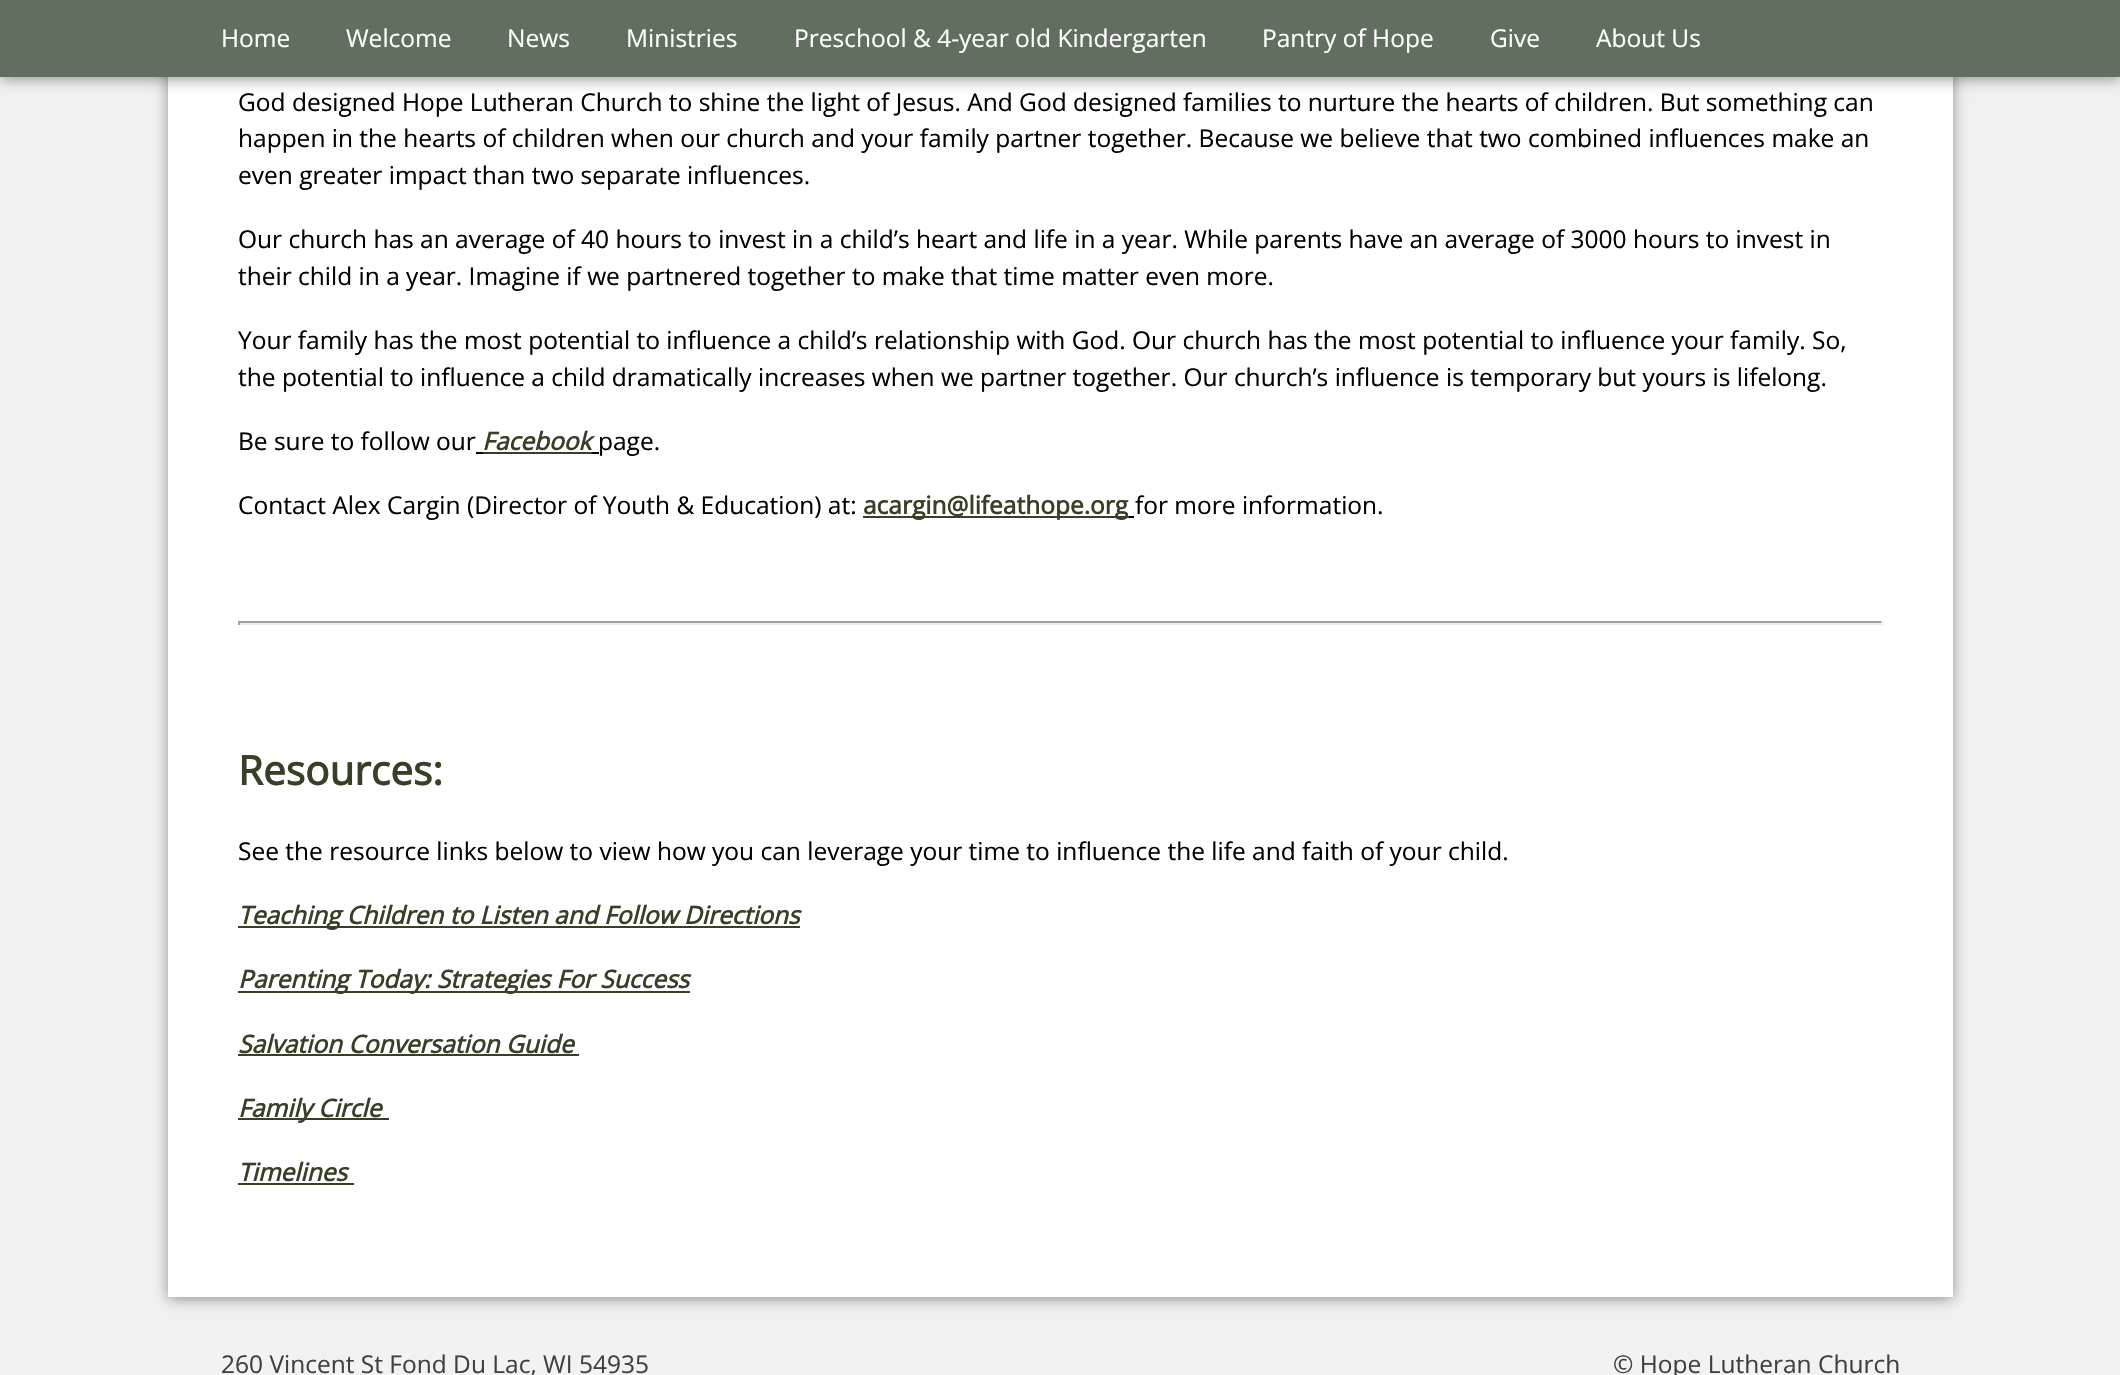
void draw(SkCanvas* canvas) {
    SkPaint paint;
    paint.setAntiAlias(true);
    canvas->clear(0xFFF2F2F2);
    paint.setColor(0x66000000);
    paint.setMaskFilter(SkMaskFilter::MakeBlur(kNormal_SkBlurStyle, 7));
    canvas->drawRect(SkRect::MakeXYWH(168, -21, 1785, 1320), paint);
    paint.setMaskFilter(nullptr);
    paint.setColor(0xFFFFFFFF);
    canvas->drawRect(SkRect::MakeXYWH(168, 77, 1785, 1220), paint);
    paint.setColor(0x66000000);
    paint.setMaskFilter(SkMaskFilter::MakeBlur(kNormal_SkBlurStyle, 7));
    canvas->drawRect(SkRect::MakeXYWH(0, 2, 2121, 77), paint);
    paint.setMaskFilter(nullptr);
    paint.setColor(0xFF626E60);
    canvas->drawRect(SkRect::MakeXYWH(0, 0, 2120, 77), paint);
    SkFont font1(fontMgr->matchFamilyStyle("Open Sans", SkFontStyle::Normal()), 24.5f);
    font1.setSubpixel(true);
    paint.setColor(0xFFFFFFFF);
    canvas->drawString("Home", 221, 47, font1, paint);
    canvas->drawString("Welcome", 346, 47, font1, paint);
    canvas->drawString("News", 507, 47, font1, paint);
    canvas->drawString("Ministries", 626, 47, font1, paint);
    canvas->drawString("Preschool & 4-year old Kindergarten", 794, 47, font1, paint);
    canvas->drawString("Pantry of Hope", 1262, 47, font1, paint);
    canvas->drawString("Give", 1490, 47, font1, paint);
    canvas->drawString("About Us", 1596, 47, font1, paint);
    paint.setColor(0xFF000000);
    canvas->drawString("God designed Hope Lutheran Church to shine the light of Jesus. And God designed families to nurture the hearts of children. But something can", 238, 111, font1, paint);
    canvas->drawString("happen in the hearts of children when our church and your family partner together. Because we believe that two combined influences make an", 238, 147, font1, paint);
    canvas->drawString("even greater impact than two separate influences.", 238, 184, font1, paint);
    canvas->drawString("Our church has an average of 40 hours to invest in a child’s heart and life in a year. While parents have an average of 3000 hours to invest in", 238, 248, font1, paint);
    canvas->drawString("their child in a year. Imagine if we partnered together to make that time matter even more.", 238, 285, font1, paint);
    canvas->drawString("Your family has the most potential to influence a child’s relationship with God. Our church has the most potential to influence your family. So,", 238, 349, font1, paint);
    canvas->drawString("the potential to influence a child dramatically increases when we partner together. Our church’s influence is temporary but yours is lifelong.", 238, 386, font1, paint);
    canvas->drawString("Be sure to follow our", 238, 450, font1, paint);
    canvas->drawRect(SkRect::MakeXYWH(476, 452, 7, 2), paint);
    SkFont font2(fontMgr->matchFamilyStyle("Open Sans", SkFontStyle::BoldItalic()), 24.5f);
    font2.setSubpixel(true);
    paint.setColor(0xFF373F27);
    canvas->drawString("Facebook", 482, 450, font2, paint);
    canvas->drawRect(SkRect::MakeXYWH(483, 452, 109, 2), paint);
    paint.setColor(0xFF000000);
    canvas->drawRect(SkRect::MakeXYWH(592, 452, 7, 2), paint);
    canvas->drawString("page.", 598, 450, font1, paint);
    canvas->drawString("Contact Alex Cargin (Director of Youth & Education) at:", 238, 514, font1, paint);
    paint.setColor(0xFF373F27);
    canvas->drawRect(SkRect::MakeXYWH(863, 516, 266, 2), paint);
    SkFont font3(fontMgr->matchFamilyStyle("Open Sans", SkFontStyle::Bold()), 24.5f);
    font3.setSubpixel(true);
    canvas->drawString("acargin@lifeathope.org", 863, 514, font3, paint);
    paint.setColor(0xFF000000);
    canvas->drawString("for more information.", 1135, 514, font1, paint);
    canvas->drawRect(SkRect::MakeXYWH(1129, 516, 5, 2), paint);
    paint.setColor(0xFF9F9F9F);
    canvas->drawRect(SkRect::MakeXYWH(238, 621, 1645, 2), paint);
    paint.setColor(0xFFEEEEEE);
    canvas->drawRect(SkRect::MakeXYWH(1881, 621, 2, 4), paint);
    canvas->drawRect(SkRect::MakeXYWH(238, 623, 1645, 2), paint);
    paint.setColor(0xFF9F9F9F);
    canvas->drawRect(SkRect::MakeXYWH(238, 621, 2, 4), paint);
    SkFont font4(fontMgr->matchFamilyStyle("Open Sans", SkFontStyle::Bold()), 40.5f);
    font4.setSubpixel(true);
    paint.setColor(0xFF373F27);
    canvas->drawString("Resources:", 238, 785, font4, paint);
    paint.setColor(0xFF000000);
    canvas->drawString("See the resource links below to view how you can leverage your time to influence the life and faith of your child.", 238, 860, font1, paint);
    paint.setColor(0xFF373F27);
    canvas->drawRect(SkRect::MakeXYWH(238, 926, 562, 2), paint);
    canvas->drawString("Teaching Children to Listen and Follow Directions", 238, 924, font2, paint);
    canvas->drawRect(SkRect::MakeXYWH(238, 991, 452, 2), paint);
    canvas->drawString("Parenting Today: Strategies For Success", 238, 988, font2, paint);
    canvas->drawString("Salvation Conversation Guide", 238, 1053, font2, paint);
    canvas->drawRect(SkRect::MakeXYWH(238, 1054, 341, 2), paint);
    canvas->drawRect(SkRect::MakeXYWH(238, 1118, 151, 2), paint);
    canvas->drawString("Family Circle", 238, 1117, font2, paint);
    canvas->drawString("Timelines", 238, 1181, font2, paint);
    canvas->drawRect(SkRect::MakeXYWH(238, 1183, 116, 2), paint);
    paint.setColor(0xFF404040);
    canvas->drawString("260 Vincent St Fond Du Lac, WI 54935", 221, 1373, font1, paint);
    canvas->drawString("© Hope Lutheran Church", 1613, 1373, font1, paint);
}
